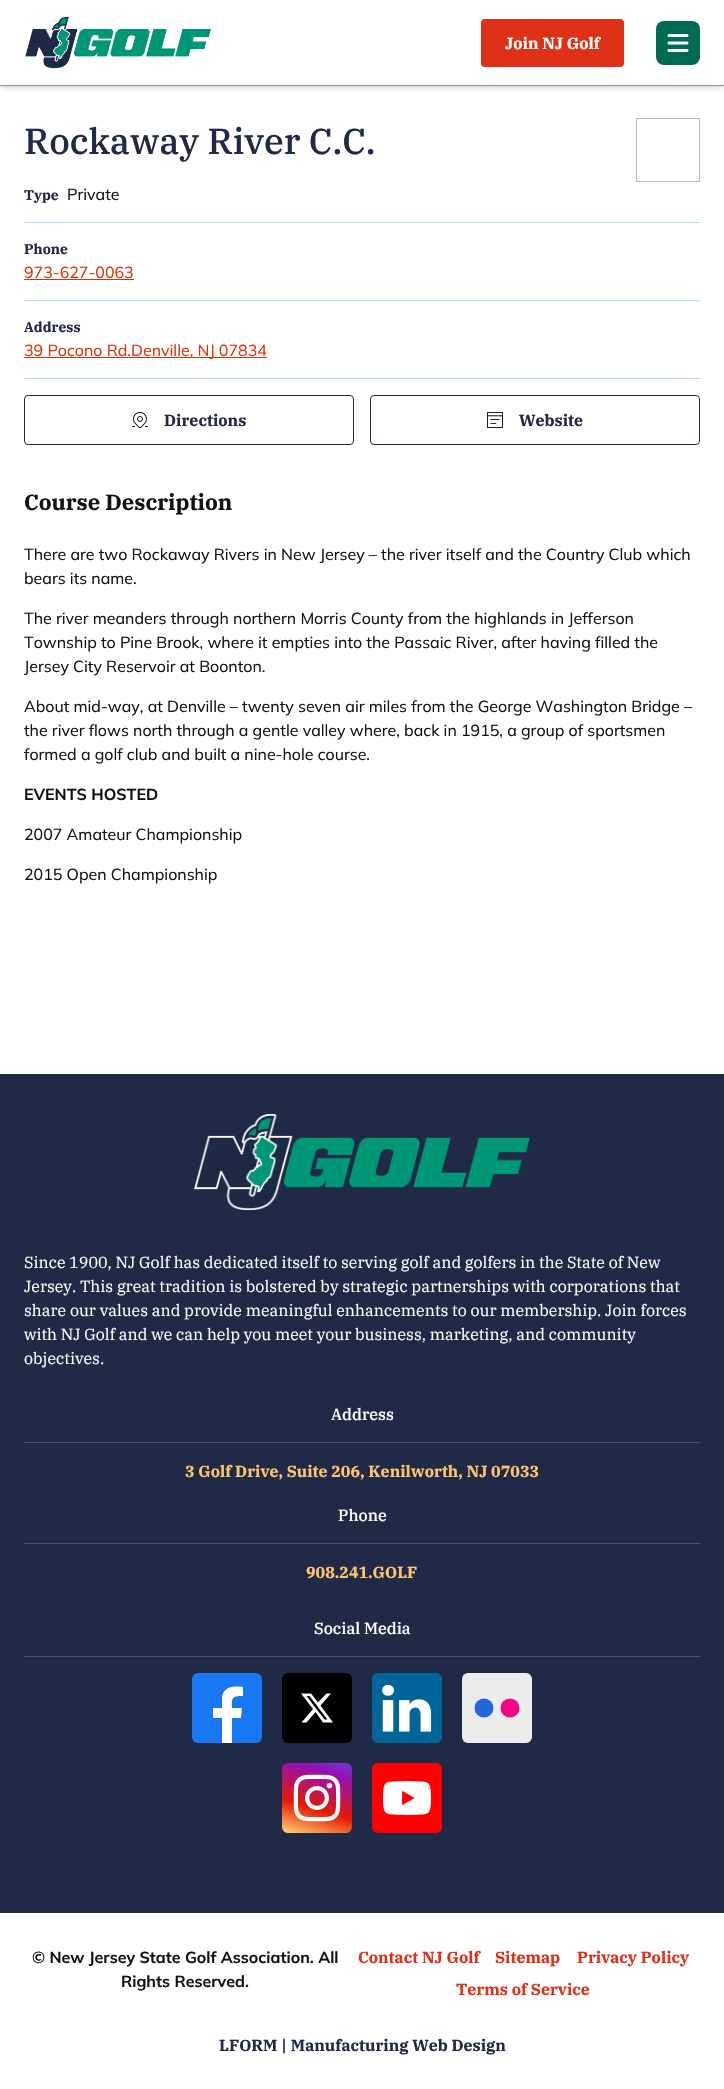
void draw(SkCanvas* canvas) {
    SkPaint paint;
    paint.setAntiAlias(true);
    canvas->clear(0xFFFFFFFF);
    canvas->save();
    canvas->clipRect(SkRect::MakeXYWH(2, 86, 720, 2));
    paint.setColor(0x1A000000);
    paint.setMaskFilter(SkMaskFilter::MakeBlur(kNormal_SkBlurStyle, 2));
    canvas->drawRect(SkRect::MakeXYWH(2, 4, 720, 82), paint);
    paint.setMaskFilter(nullptr);
    canvas->restore();
    canvas->save();
    canvas->clipRect(SkRect::MakeXYWH(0, 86, 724, 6));
    paint.setMaskFilter(SkMaskFilter::MakeBlur(kNormal_SkBlurStyle, 3));
    canvas->drawRect(SkRect::MakeXYWH(1, 5, 722, 84), paint);
    paint.setMaskFilter(nullptr);
    canvas->restore();
    paint.setColor(0xFF9094A2);
    canvas->drawRect(SkRect::MakeXYWH(0, 85, 724, 1), paint);
    canvas->drawImageRect(SkImages::DeferredFromEncodedData(SkData::MakeFromFileName("img1.png")), SkRect::MakeXYWH(25, 16, 186, 53), SkSamplingOptions());
    paint.setColor(0xFFDF3118);
    canvas->drawRoundRect(SkRect::MakeXYWH(481, 19, 143, 48), 4, 4, paint);
    SkFont font1(fontMgr->matchFamilyStyle("IBM Plex Serif", SkFontStyle::Bold()), 16);
    font1.setSubpixel(true);
    paint.setColor(0xFFFFFFFF);
    canvas->drawString("Join NJ Golf", 505, 49, font1, paint);
    paint.setColor(0xFF006A53);
    canvas->drawRoundRect(SkRect::MakeXYWH(656, 21, 44, 44), 8, 8, paint);
    canvas->drawImageRect(SkImages::DeferredFromEncodedData(SkData::MakeFromFileName("img2.png")), SkRect::MakeXYWH(667, 34, 22, 18), SkSamplingOptions());
    SkFont font2(fontMgr->matchFamilyStyle("IBM Plex Serif", SkFontStyle(500, SkFontStyle::kNormal_Width, SkFontStyle::kUpright_Slant)), 36);
    font2.setSubpixel(true);
    paint.setColor(0xFF202945);
    canvas->drawString("Rockaway River C.C.", 24, 154, font2, paint);
    paint.setStyle(SkPaint::kStroke_Style);
    paint.setStrokeWidth(1);
    paint.setColor(0xFFB3BCC7);
    canvas->drawRect(SkRect::MakeXYWH(636.5f, 118.5f, 63, 63), paint);
    paint.setStyle(SkPaint::kFill_Style);
    paint.setColor(0xFFB1DDF1);
    canvas->drawRect(SkRect::MakeXYWH(24, 222, 676, 1), paint);
    SkFont font3(fontMgr->matchFamilyStyle("IBM Plex Serif", SkFontStyle::Bold()), 14);
    font3.setSubpixel(true);
    paint.setColor(0xFF202945);
    canvas->drawString("Type", 24, 200, font3, paint);
    SkFont font4(fontMgr->matchFamilyStyle("Mulish", SkFontStyle::Normal()), 16);
    font4.setSubpixel(true);
    paint.setColor(0xFF111214);
    canvas->drawString("Private", 67, 200, font4, paint);
    paint.setColor(0xFFB1DDF1);
    canvas->drawRect(SkRect::MakeXYWH(24, 300, 676, 1), paint);
    paint.setColor(0xFF202945);
    canvas->drawString("Phone", 24, 254, font3, paint);
    paint.setColor(0xFFDF3101);
    canvas->drawString("973-627-0063", 24, 278, font4, paint);
    canvas->drawRect(SkRect::MakeXYWH(24, 279, 110, 1), paint);
    paint.setColor(0xFFB1DDF1);
    canvas->drawRect(SkRect::MakeXYWH(24, 378, 676, 1), paint);
    paint.setColor(0xFF202945);
    canvas->drawString("Address", 24, 332, font3, paint);
    paint.setColor(0xFFDF3101);
    canvas->drawRect(SkRect::MakeXYWH(24, 357, 243, 1), paint);
    canvas->drawString("39 Pocono Rd.Denville, NJ 07834", 24, 356, font4, paint);
    paint.setStyle(SkPaint::kStroke_Style);
    paint.setColor(0xFF202945);
    canvas->drawRoundRect(SkRect::MakeXYWH(24.5f, 395.5f, 329, 49), 3.5f, 3.5f, paint);
    canvas->drawImageRect(SkImages::DeferredFromEncodedData(SkData::MakeFromFileName("img3.png")), SkRect::MakeXYWH(132, 412, 16, 16), SkSamplingOptions());
    paint.setStyle(SkPaint::kFill_Style);
    canvas->drawString("Directions", 164, 426, font1, paint);
    paint.setStyle(SkPaint::kStroke_Style);
    canvas->drawRoundRect(SkRect::MakeXYWH(370.5f, 395.5f, 329, 49), 3.5f, 3.5f, paint);
    canvas->drawImageRect(SkImages::DeferredFromEncodedData(SkData::MakeFromFileName("img4.png")), SkRect::MakeXYWH(487, 412, 16, 16), SkSamplingOptions());
    paint.setStyle(SkPaint::kFill_Style);
    canvas->drawString("Website", 519, 426, font1, paint);
    SkFont font5(fontMgr->matchFamilyStyle("IBM Plex Serif", SkFontStyle::Bold()), 22);
    font5.setSubpixel(true);
    paint.setColor(0xFF111214);
    canvas->drawString("Course Description", 24, 510, font5, paint);
    canvas->drawString("There are two Rockaway Rivers in New Jersey – the river itself and the Country Club which", 24, 560, font4, paint);
    canvas->drawString("bears its name.", 24, 584, font4, paint);
    canvas->drawString("The river meanders through northern Morris County from the highlands in Jefferson", 24, 624, font4, paint);
    canvas->drawString("Township to Pine Brook, where it empties into the Passaic River, after having filled the", 24, 648, font4, paint);
    canvas->drawString("Jersey City Reservoir at Boonton.", 24, 672, font4, paint);
    canvas->drawString("About mid-way, at Denville – twenty seven air miles from the George Washington Bridge –", 24, 712, font4, paint);
    canvas->drawString("the river flows north through a gentle valley where, back in 1915, a group of sportsmen", 24, 736, font4, paint);
    canvas->drawString("formed a golf club and built a nine-hole course.", 24, 760, font4, paint);
    SkFont font6(fontMgr->matchFamilyStyle("Mulish", SkFontStyle::Bold()), 16);
    font6.setSubpixel(true);
    canvas->drawString("EVENTS HOSTED", 24, 800, font6, paint);
    canvas->drawString("2007 Amateur Championship", 24, 840, font4, paint);
    canvas->drawString("2015 Open Championship", 24, 880, font4, paint);
    paint.setColor(0xFF202945);
    canvas->drawRect(SkRect::MakeXYWH(0, 1074, 724, 839), paint);
    canvas->drawImageRect(SkImages::DeferredFromEncodedData(SkData::MakeFromFileName("img5.png")), SkRect::MakeXYWH(194, 1114, 336, 96), SkSamplingOptions());
    SkFont font7(fontMgr->matchFamilyStyle("IBM Plex Serif", SkFontStyle::Normal()), 16);
    font7.setSubpixel(true);
    paint.setColor(0xFFFFFFFF);
    canvas->drawString("Since 1900, NJ Golf has dedicated itself to serving golf and golfers in the State of New", 24, 1268, font7, paint);
    canvas->drawString("Jersey. This great tradition is bolstered by strategic partnerships with corporations that", 24, 1292, font7, paint);
    canvas->drawString("share our values and provide meaningful enhancements to our membership. Join forces", 24, 1316, font7, paint);
    canvas->drawString("with NJ Golf and we can help you meet your business, marketing, and community", 24, 1340, font7, paint);
    canvas->drawString("objectives.", 24, 1364, font7, paint);
    paint.setColor(0xFF4D546A);
    canvas->drawRect(SkRect::MakeXYWH(24, 1442, 676, 1), paint);
    SkFont font8(fontMgr->matchFamilyStyle("IBM Plex Serif", SkFontStyle(500, SkFontStyle::kNormal_Width, SkFontStyle::kUpright_Slant)), 16);
    font8.setSubpixel(true);
    paint.setColor(0xFFFFFFFF);
    canvas->drawString("Address", 331, 1420, font8, paint);
    paint.setColor(0xFFFFC56D);
    canvas->drawString("3 Golf Drive, Suite 206, Kenilworth, NJ 07033", 185, 1477, font1, paint);
    paint.setColor(0xFF4D546A);
    canvas->drawRect(SkRect::MakeXYWH(24, 1543, 676, 1), paint);
    paint.setColor(0xFFFFFFFF);
    canvas->drawString("Phone", 338, 1521, font8, paint);
    paint.setColor(0xFFFFC56D);
    canvas->drawString("908.241.GOLF", 306, 1578, font1, paint);
    paint.setColor(0xFF4D546A);
    canvas->drawRect(SkRect::MakeXYWH(24, 1656, 676, 1), paint);
    paint.setColor(0xFFFFFFFF);
    canvas->drawString("Social Media", 314, 1634, font8, paint);
    paint.setColor(0xFF1877F2);
    canvas->drawRoundRect(SkRect::MakeXYWH(192, 1673, 70, 70), 6, 6, paint);
    paint.setColor(0xFFFFFFFF);
    canvas->drawPath(SkPathBuilder().moveTo(222, 1743).lineTo(232, 1743).lineTo(232, 1718).lineTo(241, 1718).lineTo(242, 1708).lineTo(232, 1708).cubicTo(232, 1698, 231, 1696, 243, 1696).lineTo(243, 1687).cubicTo(234, 1686, 224, 1686, 222, 1697).lineTo(222, 1708).lineTo(213, 1708).lineTo(213, 1718).lineTo(222, 1718).close().detach(), paint);
    paint.setColor(0xFF000000);
    canvas->drawRoundRect(SkRect::MakeXYWH(282, 1673, 70, 70), 6, 6, paint);
    paint.setColor(0xFFFFFFFF);
    canvas->drawPath(SkPathBuilder().moveTo(326.5f, 1693.5f).lineTo(331, 1693.5f).lineTo(320.5f, 1705.5f).lineTo(333, 1722.5f).lineTo(323, 1722.5f).lineTo(315.5f, 1712).lineTo(306.5f, 1722.5f).lineTo(301.5f, 1722.5f).lineTo(313, 1709).lineTo(301, 1693.5f).lineTo(311, 1693.5f).lineTo(318, 1702.5f).close().moveTo(324.5f, 1719.5f).lineTo(327.5f, 1719.5f).lineTo(309.5f, 1696).lineTo(306.5f, 1696).close().detach(), paint);
    canvas->drawImageRect(SkImages::DeferredFromEncodedData(SkData::MakeFromFileName("img6.png")), SkRect::MakeXYWH(372, 1673, 70, 70), SkSamplingOptions());
    paint.setColor(0xFFECECEB);
    canvas->drawRoundRect(SkRect::MakeXYWH(462, 1673, 70, 70), 6, 6, paint);
    paint.setColor(0xFF2364D7);
    canvas->drawCircle(484, 1708, 9.5f, paint);
    paint.setColor(0xFFF60383);
    canvas->drawCircle(510, 1708, 9.5f, paint);
    canvas->drawImageRect(SkImages::DeferredFromEncodedData(SkData::MakeFromFileName("img7.png")), SkRect::MakeXYWH(282, 1763, 70, 70), SkSamplingOptions());
    canvas->drawImageRect(SkImages::DeferredFromEncodedData(SkData::MakeFromFileName("img8.png")), SkRect::MakeXYWH(372, 1763, 70, 70), SkSamplingOptions());
    paint.setColor(0xFF111214);
    canvas->drawString("© New Jersey State Golf Association. All", 32, 1963, font6, paint);
    canvas->drawString("Rights Reserved.", 121, 1987, font6, paint);
    paint.setColor(0xFFDF3118);
    canvas->drawString("Contact NJ Golf", 358, 1963, font1, paint);
    canvas->drawString("Sitemap", 495, 1963, font1, paint);
    canvas->drawString("Privacy Policy", 577, 1963, font1, paint);
    canvas->drawString("Terms of Service", 456, 1995, font1, paint);
    paint.setColor(0xFF202945);
    canvas->drawString("LFORM | Manufacturing Web Design", 219, 2051, font1, paint);
}
